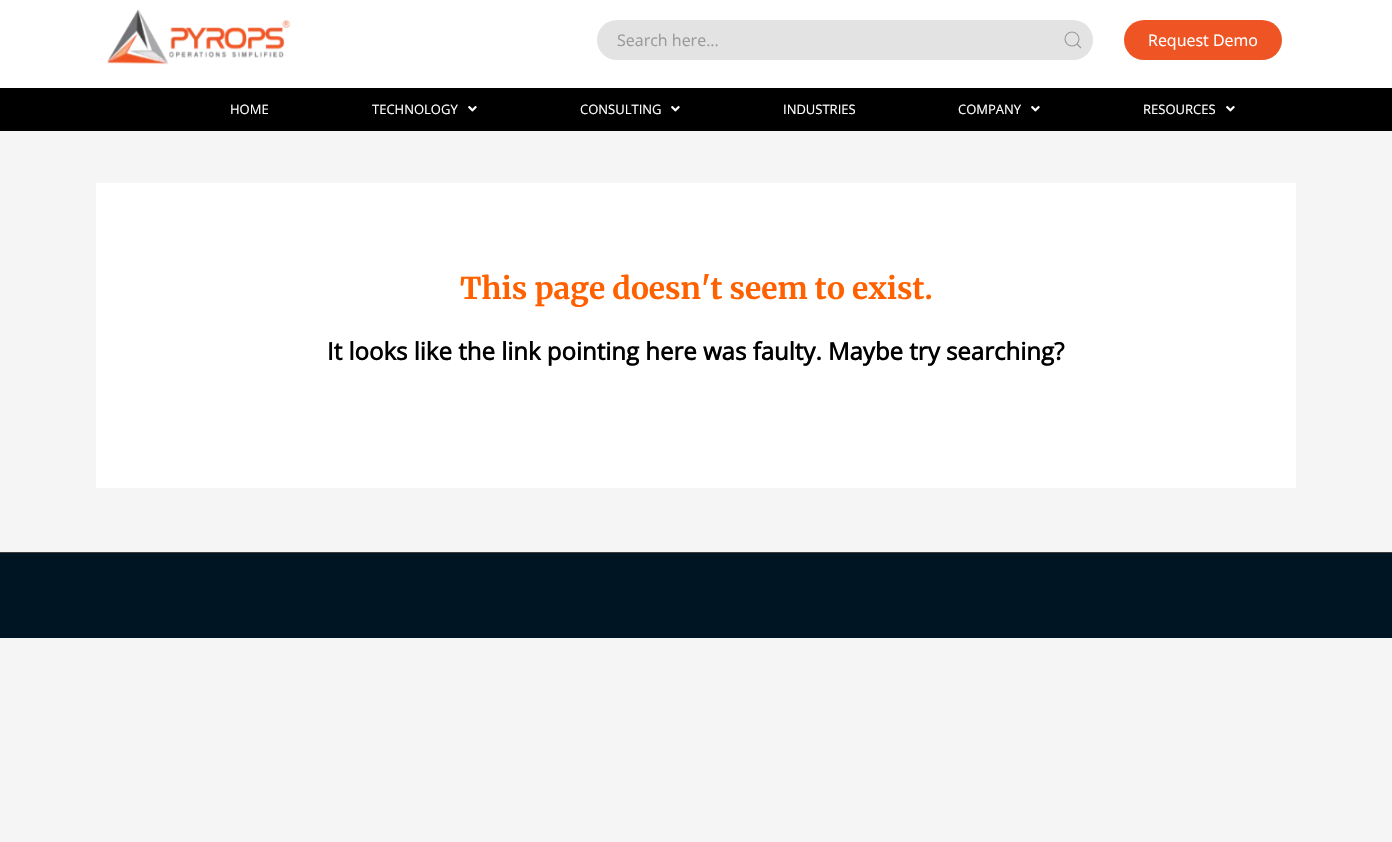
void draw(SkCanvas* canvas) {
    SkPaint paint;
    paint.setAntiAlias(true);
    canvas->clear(0xFFF5F5F5);
    paint.setColor(0xFFFFFFFF);
    canvas->drawRect(SkRect::MakeXYWH(0, 0, 1392, 88), paint);
    canvas->drawImageRect(SkImages::DeferredFromEncodedData(SkData::MakeFromFileName("img1.png")), SkRect::MakeXYWH(107, 10, 183, 55), SkSamplingOptions());
    paint.setColor(0xFFE3E3E3);
    canvas->drawRoundRect(SkRect::MakeXYWH(597, 20, 496, 40), 20, 20, paint);
    SkFont font1(fontMgr->matchFamilyStyle("Open Sans", SkFontStyle::Normal()), 16);
    font1.setSubpixel(true);
    paint.setColor(0xFF999999);
    canvas->drawString("Search here...", 617, 46, font1, paint);
    paint.setStyle(SkPaint::kStroke_Style);
    paint.setStrokeWidth(1.1f);
    canvas->drawCircle(1072, 39, 7, paint);
    canvas->drawPath(SkPathBuilder().moveTo(1077, 44).lineTo(1081, 48).close().detach(), paint);
    paint.setStyle(SkPaint::kFill_Style);
    paint.setColor(0xFFEF5424);
    canvas->drawRoundRect(SkRect::MakeXYWH(1124, 20, 158, 40), 20, 20, paint);
    paint.setColor(0xFFFFFFFF);
    canvas->drawString("Request Demo", 1148, 46, font1, paint);
    paint.setColor(0xFF000000);
    canvas->drawRect(SkRect::MakeXYWH(0, 88, 1392, 43), paint);
    SkFont font2(fontMgr->matchFamilyStyle("Open Sans", SkFontStyle::Normal()), 13);
    font2.setSubpixel(true);
    paint.setColor(0xFFFFFFFF);
    canvas->drawString("HOME", 230, 114, font2, paint);
    canvas->drawString("TECHNOLOGY", 372, 114, font2, paint);
    canvas->drawImageRect(SkImages::DeferredFromEncodedData(SkData::MakeFromFileName("img2.png")), SkRect::MakeXYWH(468, 106, 9, 6), SkSamplingOptions());
    canvas->drawString("CONSULTING", 580, 114, font2, paint);
    canvas->drawImageRect(SkImages::DeferredFromEncodedData(SkData::MakeFromFileName("img2.png")), SkRect::MakeXYWH(671, 106, 9, 6), SkSamplingOptions());
    canvas->drawString("INDUSTRIES", 783, 114, font2, paint);
    canvas->drawString("COMPANY", 958, 114, font2, paint);
    canvas->drawImageRect(SkImages::DeferredFromEncodedData(SkData::MakeFromFileName("img2.png")), SkRect::MakeXYWH(1031, 106, 9, 6), SkSamplingOptions());
    canvas->drawString("RESOURCES", 1143, 114, font2, paint);
    canvas->drawImageRect(SkImages::DeferredFromEncodedData(SkData::MakeFromFileName("img2.png")), SkRect::MakeXYWH(1226, 106, 9, 6), SkSamplingOptions());
    canvas->drawRect(SkRect::MakeXYWH(96, 183, 1200, 305), paint);
    SkFont font3(fontMgr->matchFamilyStyle("Merriweather", SkFontStyle(300, SkFontStyle::kNormal_Width, SkFontStyle::kUpright_Slant)), 30);
    font3.setSubpixel(true);
    paint.setColor(0xFFFF6100);
    canvas->drawString("This page doesn't seem to exist.", 460, 299, font3, paint);
    SkFont font4(fontMgr->matchFamilyStyle("Open Sans", SkFontStyle::Bold()), 24);
    font4.setSubpixel(true);
    paint.setColor(0xFF000000);
    canvas->drawString("It looks like the link pointing here was faulty. Maybe try searching?", 327, 360, font4, paint);
    paint.setColor(0xFF3F3F3F);
    canvas->drawRect(SkRect::MakeXYWH(0, 552, 1392, 1), paint);
    paint.setColor(0xFF001524);
    canvas->drawRect(SkRect::MakeXYWH(0, 553, 1392, 85), paint);
}
